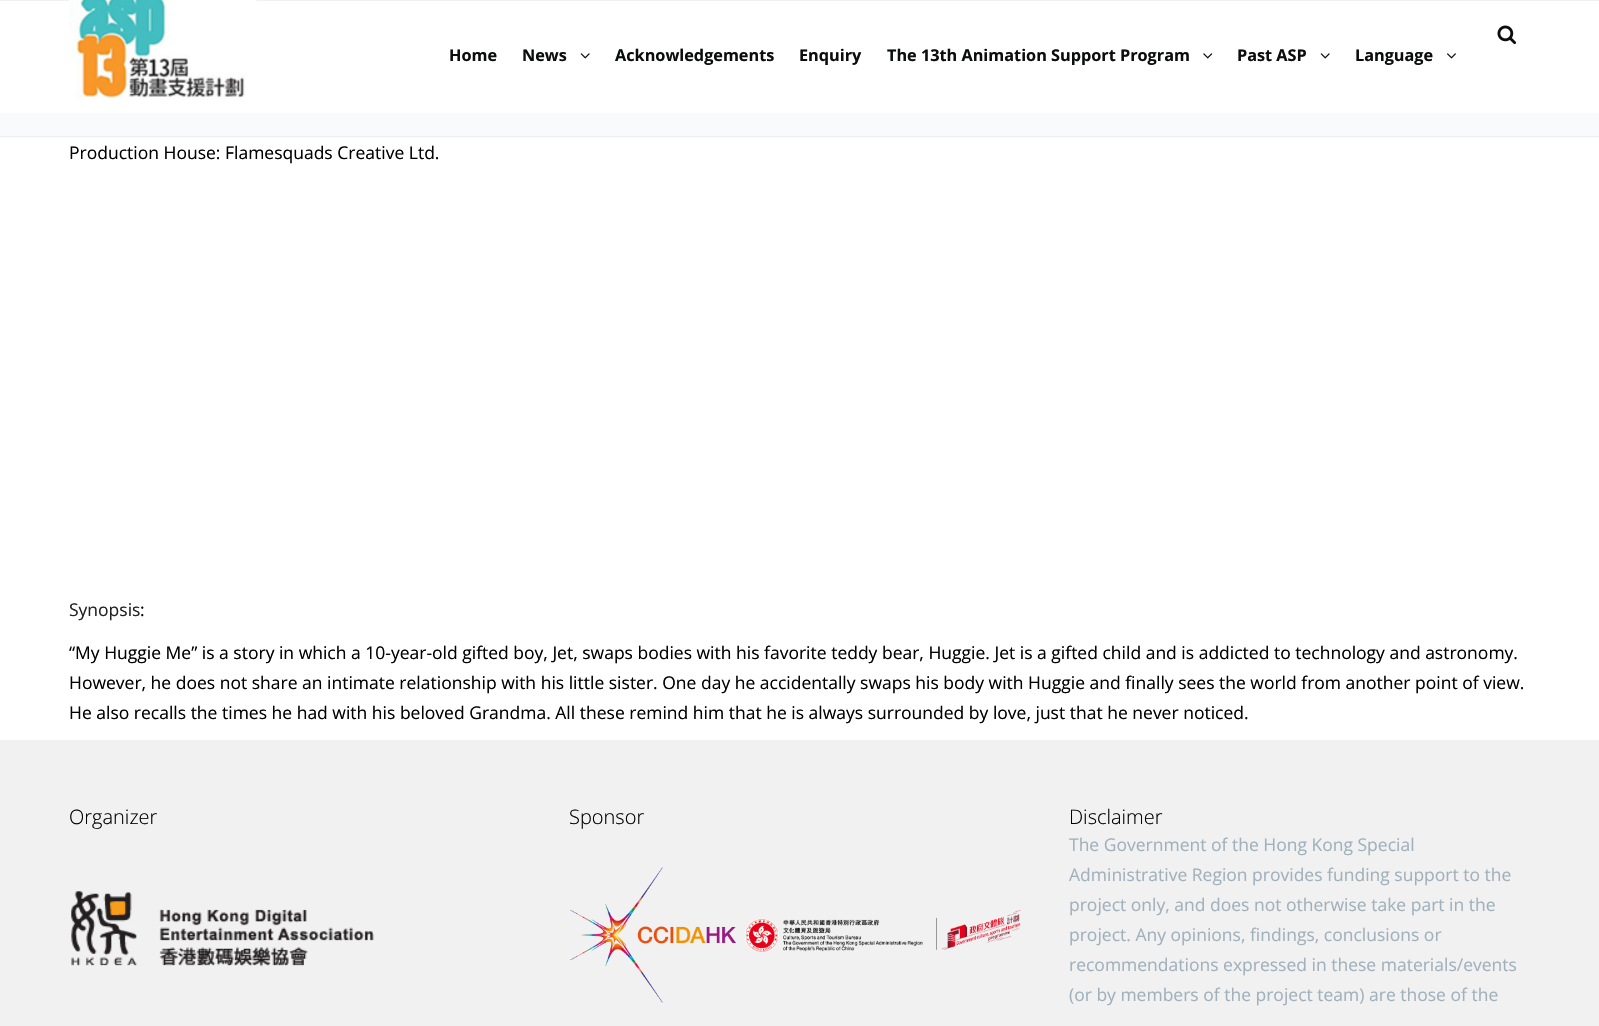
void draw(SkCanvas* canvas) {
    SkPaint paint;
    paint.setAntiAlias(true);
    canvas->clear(0xFFFFFFFF);
    paint.setColor(0xFFF9FAFB);
    canvas->drawRect(SkRect::MakeXYWH(0, 1, 1599, 137), paint);
    paint.setColor(0xFFECF0F1);
    canvas->drawRect(SkRect::MakeXYWH(0, 136, 1599, 1), paint);
    canvas->drawImageRect(SkImages::DeferredFromEncodedData(SkData::MakeFromFileName("img1.png")), SkRect::MakeXYWH(1272, 58, 8, 12), SkSamplingOptions());
    canvas->drawImageRect(SkImages::DeferredFromEncodedData(SkData::MakeFromFileName("img2.png")), SkRect::MakeXYWH(1391, 58, 7, 12), SkSamplingOptions());
    paint.setColor(0xF2FFFFFF);
    canvas->drawRect(SkRect::MakeXYWH(0, 1, 1599, 112), paint);
    paint.setColor(0xFFEDF1F2);
    canvas->drawRect(SkRect::MakeXYWH(0, 0, 1599, 1), paint);
    canvas->drawImageRect(SkImages::DeferredFromEncodedData(SkData::MakeFromFileName("img3.png")), SkRect::MakeXYWH(69, 0, 188, 99), SkSamplingOptions());
    canvas->drawImageRect(SkImages::DeferredFromEncodedData(SkData::MakeFromFileName("img4.png")), SkRect::MakeXYWH(1497, 25, 20, 20), SkSamplingOptions());
    paint.setColor(0xF2FFFFFF);
    canvas->drawRect(SkRect::MakeXYWH(1273, 58, 125, 11), paint);
    SkFont font1(fontMgr->matchFamilyStyle("Open Sans", SkFontStyle::Bold()), 16.25f);
    font1.setSubpixel(true);
    paint.setColor(0xFF0C0D0D);
    canvas->drawString("Home", 449, 61, font1, paint);
    canvas->drawString("News", 522, 61, font1, paint);
    canvas->drawImageRect(SkImages::DeferredFromEncodedData(SkData::MakeFromFileName("img5.png")), SkRect::MakeXYWH(580, 53, 10, 6), SkSamplingOptions());
    canvas->drawString("Acknowledgements", 615, 61, font1, paint);
    canvas->drawString("Enquiry", 799, 61, font1, paint);
    canvas->drawString("The 13th Animation Support Program", 887, 61, font1, paint);
    canvas->drawImageRect(SkImages::DeferredFromEncodedData(SkData::MakeFromFileName("img6.png")), SkRect::MakeXYWH(1203, 53, 10, 6), SkSamplingOptions());
    canvas->drawString("Past ASP", 1237, 61, font1, paint);
    canvas->drawImageRect(SkImages::DeferredFromEncodedData(SkData::MakeFromFileName("img7.png")), SkRect::MakeXYWH(1320, 53, 10, 6), SkSamplingOptions());
    canvas->drawString("Language", 1355, 61, font1, paint);
    canvas->drawImageRect(SkImages::DeferredFromEncodedData(SkData::MakeFromFileName("img8.png")), SkRect::MakeXYWH(1447, 53, 9, 6), SkSamplingOptions());
    SkFont font2(fontMgr->matchFamilyStyle("Open Sans", SkFontStyle::Normal()), 17.5f);
    font2.setSubpixel(true);
    paint.setColor(0xFF000000);
    canvas->drawString("Production House: Flamesquads Creative Ltd.", 69, 159, font2, paint);
    paint.setColor(0xFF222222);
    canvas->drawString("Synopsis", 69, 616, font2, paint);
    paint.setColor(0xFF000000);
    canvas->drawString(":", 140, 616, font2, paint);
    canvas->drawString("“My Huggie Me” is a story in which a 10-year-old gifted boy, Jet, swaps bodies with his favorite teddy bear, Huggie. Jet is a gifted child and is addicted to technology and astronomy.", 69, 659, font2, paint);
    canvas->drawString("However, he does not share an intimate relationship with his little sister. One day he accidentally swaps his body with Huggie and finally sees the world from another point of view.", 69, 689, font2, paint);
    canvas->drawString("He also recalls the times he had with his beloved Grandma. All these remind him that he is always surrounded by love, just that he never noticed.", 69, 719, font2, paint);
    paint.setColor(0xFFF1F1F1);
    canvas->drawRect(SkRect::MakeXYWH(0, 740, 1599, 286), paint);
    SkFont font3(fontMgr->matchFamilyStyle("Open Sans", SkFontStyle(300, SkFontStyle::kNormal_Width, SkFontStyle::kUpright_Slant)), 20);
    font3.setSubpixel(true);
    paint.setColor(0xFF000000);
    canvas->drawString("Organizer", 69, 824, font3, paint);
    canvas->drawImageRect(SkImages::DeferredFromEncodedData(SkData::MakeFromFileName("img9.png")), SkRect::MakeXYWH(71, 891, 303, 76), SkSamplingOptions());
    canvas->drawString("Sponsor", 569, 824, font3, paint);
    canvas->drawImageRect(SkImages::DeferredFromEncodedData(SkData::MakeFromFileName("img10.png")), SkRect::MakeXYWH(570, 867, 452, 136), SkSamplingOptions());
    canvas->drawString("Disclaimer", 1069, 824, font3, paint);
    paint.setColor(0xFFA1B1BC);
    canvas->drawString("The Government of the Hong Kong Special", 1069, 851, font2, paint);
    canvas->drawString("Administrative Region provides funding support to the", 1069, 881, font2, paint);
    canvas->drawString("project only, and does not otherwise take part in the", 1069, 911, font2, paint);
    canvas->drawString("project. Any opinions, findings, conclusions or", 1069, 941, font2, paint);
    canvas->drawString("recommendations expressed in these materials/events", 1069, 971, font2, paint);
    canvas->drawString("(or by members of the project team) are those of the", 1069, 1001, font2, paint);
}
